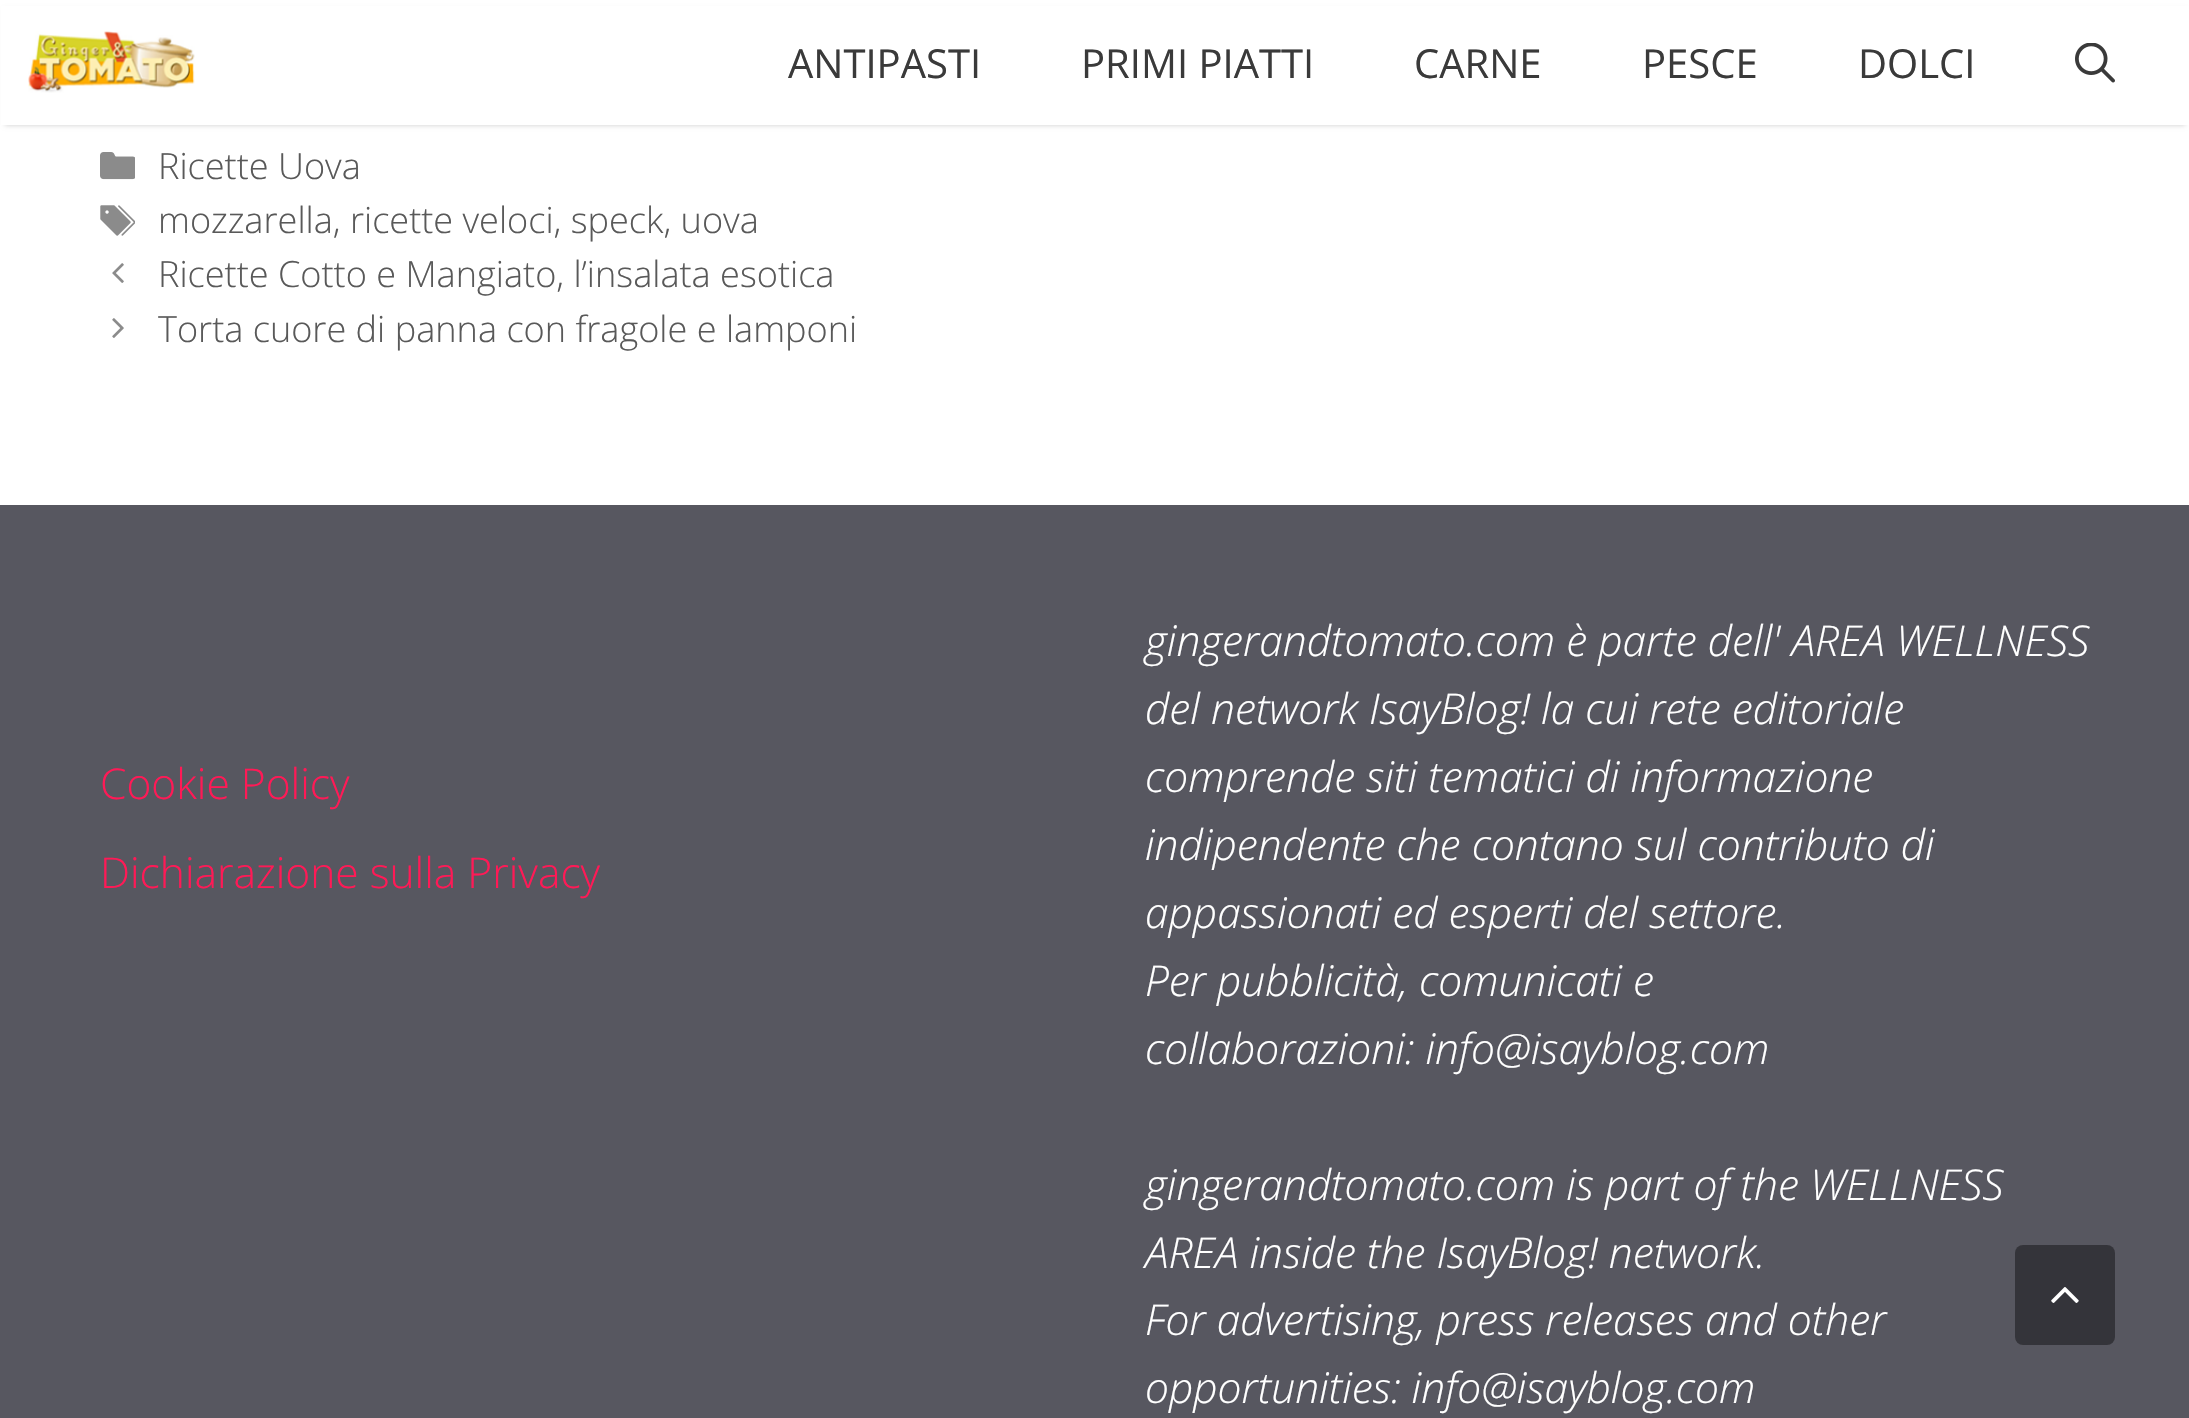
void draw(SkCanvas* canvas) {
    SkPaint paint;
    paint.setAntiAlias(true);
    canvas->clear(0xFFFFFFFF);
    paint.setColor(0x33000000);
    paint.setMaskFilter(SkMaskFilter::MakeBlur(kNormal_SkBlurStyle, 2.5f));
    canvas->drawRect(SkRect::MakeXYWH(5, 10, 2180, 115), paint);
    paint.setMaskFilter(nullptr);
    paint.setColor(0xFFFFFFFF);
    canvas->drawRect(SkRect::MakeXYWH(1, 6, 2188, 119), paint);
    canvas->drawImageRect(SkImages::DeferredFromEncodedData(SkData::MakeFromFileName("img1.png")), SkRect::MakeXYWH(28, 31, 167, 62), SkSamplingOptions());
    SkFont font1(fontMgr->matchFamilyStyle("Open Sans", SkFontStyle::Normal()), 40);
    font1.setSubpixel(true);
    paint.setColor(0xFF3A3A3A);
    canvas->drawString("ANTIPASTI", 788, 78, font1, paint);
    canvas->drawString("PRIMI PIATTI", 1081, 78, font1, paint);
    canvas->drawString("CARNE", 1414, 78, font1, paint);
    canvas->drawString("PESCE", 1642, 78, font1, paint);
    canvas->drawString("DOLCI", 1858, 78, font1, paint);
    canvas->drawImageRect(SkImages::DeferredFromEncodedData(SkData::MakeFromFileName("img2.png")), SkRect::MakeXYWH(2075, 43, 40, 40), SkSamplingOptions());
    canvas->drawImageRect(SkImages::DeferredFromEncodedData(SkData::MakeFromFileName("img3.png")), SkRect::MakeXYWH(100, 152, 35, 28), SkSamplingOptions());
    SkFont font2(fontMgr->matchFamilyStyle("Open Sans", SkFontStyle(300, SkFontStyle::kNormal_Width, SkFontStyle::kUpright_Slant)), 36.1f);
    font2.setSubpixel(true);
    paint.setColor(0xFF595959);
    canvas->drawString("Ricette Uova", 158, 179, font2, paint);
    canvas->drawImageRect(SkImages::DeferredFromEncodedData(SkData::MakeFromFileName("img4.png")), SkRect::MakeXYWH(100, 205, 35, 31), SkSamplingOptions());
    canvas->drawString("mozzarella, ricette veloci, speck, uova", 158, 233, font2, paint);
    canvas->drawImageRect(SkImages::DeferredFromEncodedData(SkData::MakeFromFileName("img5.png")), SkRect::MakeXYWH(112, 263, 12, 20), SkSamplingOptions());
    canvas->drawString("Ricette Cotto e Mangiato, l’insalata esotica", 158, 287, font2, paint);
    canvas->drawImageRect(SkImages::DeferredFromEncodedData(SkData::MakeFromFileName("img6.png")), SkRect::MakeXYWH(112, 318, 12, 20), SkSamplingOptions());
    canvas->drawString("Torta cuore di panna con fragole e lamponi", 158, 342, font2, paint);
    paint.setColor(0xFF575760);
    canvas->drawRect(SkRect::MakeXYWH(0, 505, 2189, 913), paint);
    SkFont font3(fontMgr->matchFamilyStyle("Open Sans", SkFontStyle(300, SkFontStyle::kNormal_Width, SkFontStyle::kUpright_Slant)), 42.5f);
    font3.setSubpixel(true);
    paint.setColor(0xFFFF1956);
    canvas->drawString("Cookie Policy", 100, 799, font3, paint);
    canvas->drawString("Dichiarazione sulla Privacy", 100, 888, font3, paint);
    SkFont font4(fontMgr->matchFamilyStyle("Open Sans", SkFontStyle(300, SkFontStyle::kNormal_Width, SkFontStyle::kItalic_Slant)), 42.5f);
    font4.setSubpixel(true);
    paint.setColor(0xFFFFFFFF);
    canvas->drawString("gingerandtomato.com è parte dell' AREA WELLNESS", 1145, 656, font4, paint);
    canvas->drawString("del network IsayBlog! la cui rete editoriale", 1145, 724, font4, paint);
    canvas->drawString("comprende siti tematici di informazione", 1145, 792, font4, paint);
    canvas->drawString("indipendente che contano sul contributo di", 1145, 860, font4, paint);
    canvas->drawString("appassionati ed esperti del settore.", 1145, 928, font4, paint);
    canvas->drawString("Per pubblicità, comunicati e", 1145, 996, font4, paint);
    canvas->drawString("collaborazioni: info@isayblog.com", 1145, 1064, font4, paint);
    canvas->drawString("gingerandtomato.com is part of the WELLNESS", 1145, 1200, font4, paint);
    canvas->drawString("AREA inside the IsayBlog! network.", 1145, 1268, font4, paint);
    canvas->drawString("For advertising, press releases and other", 1145, 1335, font4, paint);
    canvas->drawString("opportunities: info@isayblog.com", 1145, 1403, font4, paint);
    paint.setColor(0xFF34343A);
    canvas->drawRoundRect(SkRect::MakeXYWH(2015, 1245, 100, 100), 8, 8, paint);
    canvas->drawImageRect(SkImages::DeferredFromEncodedData(SkData::MakeFromFileName("img7.png")), SkRect::MakeXYWH(2051, 1287, 28, 16), SkSamplingOptions());
}
